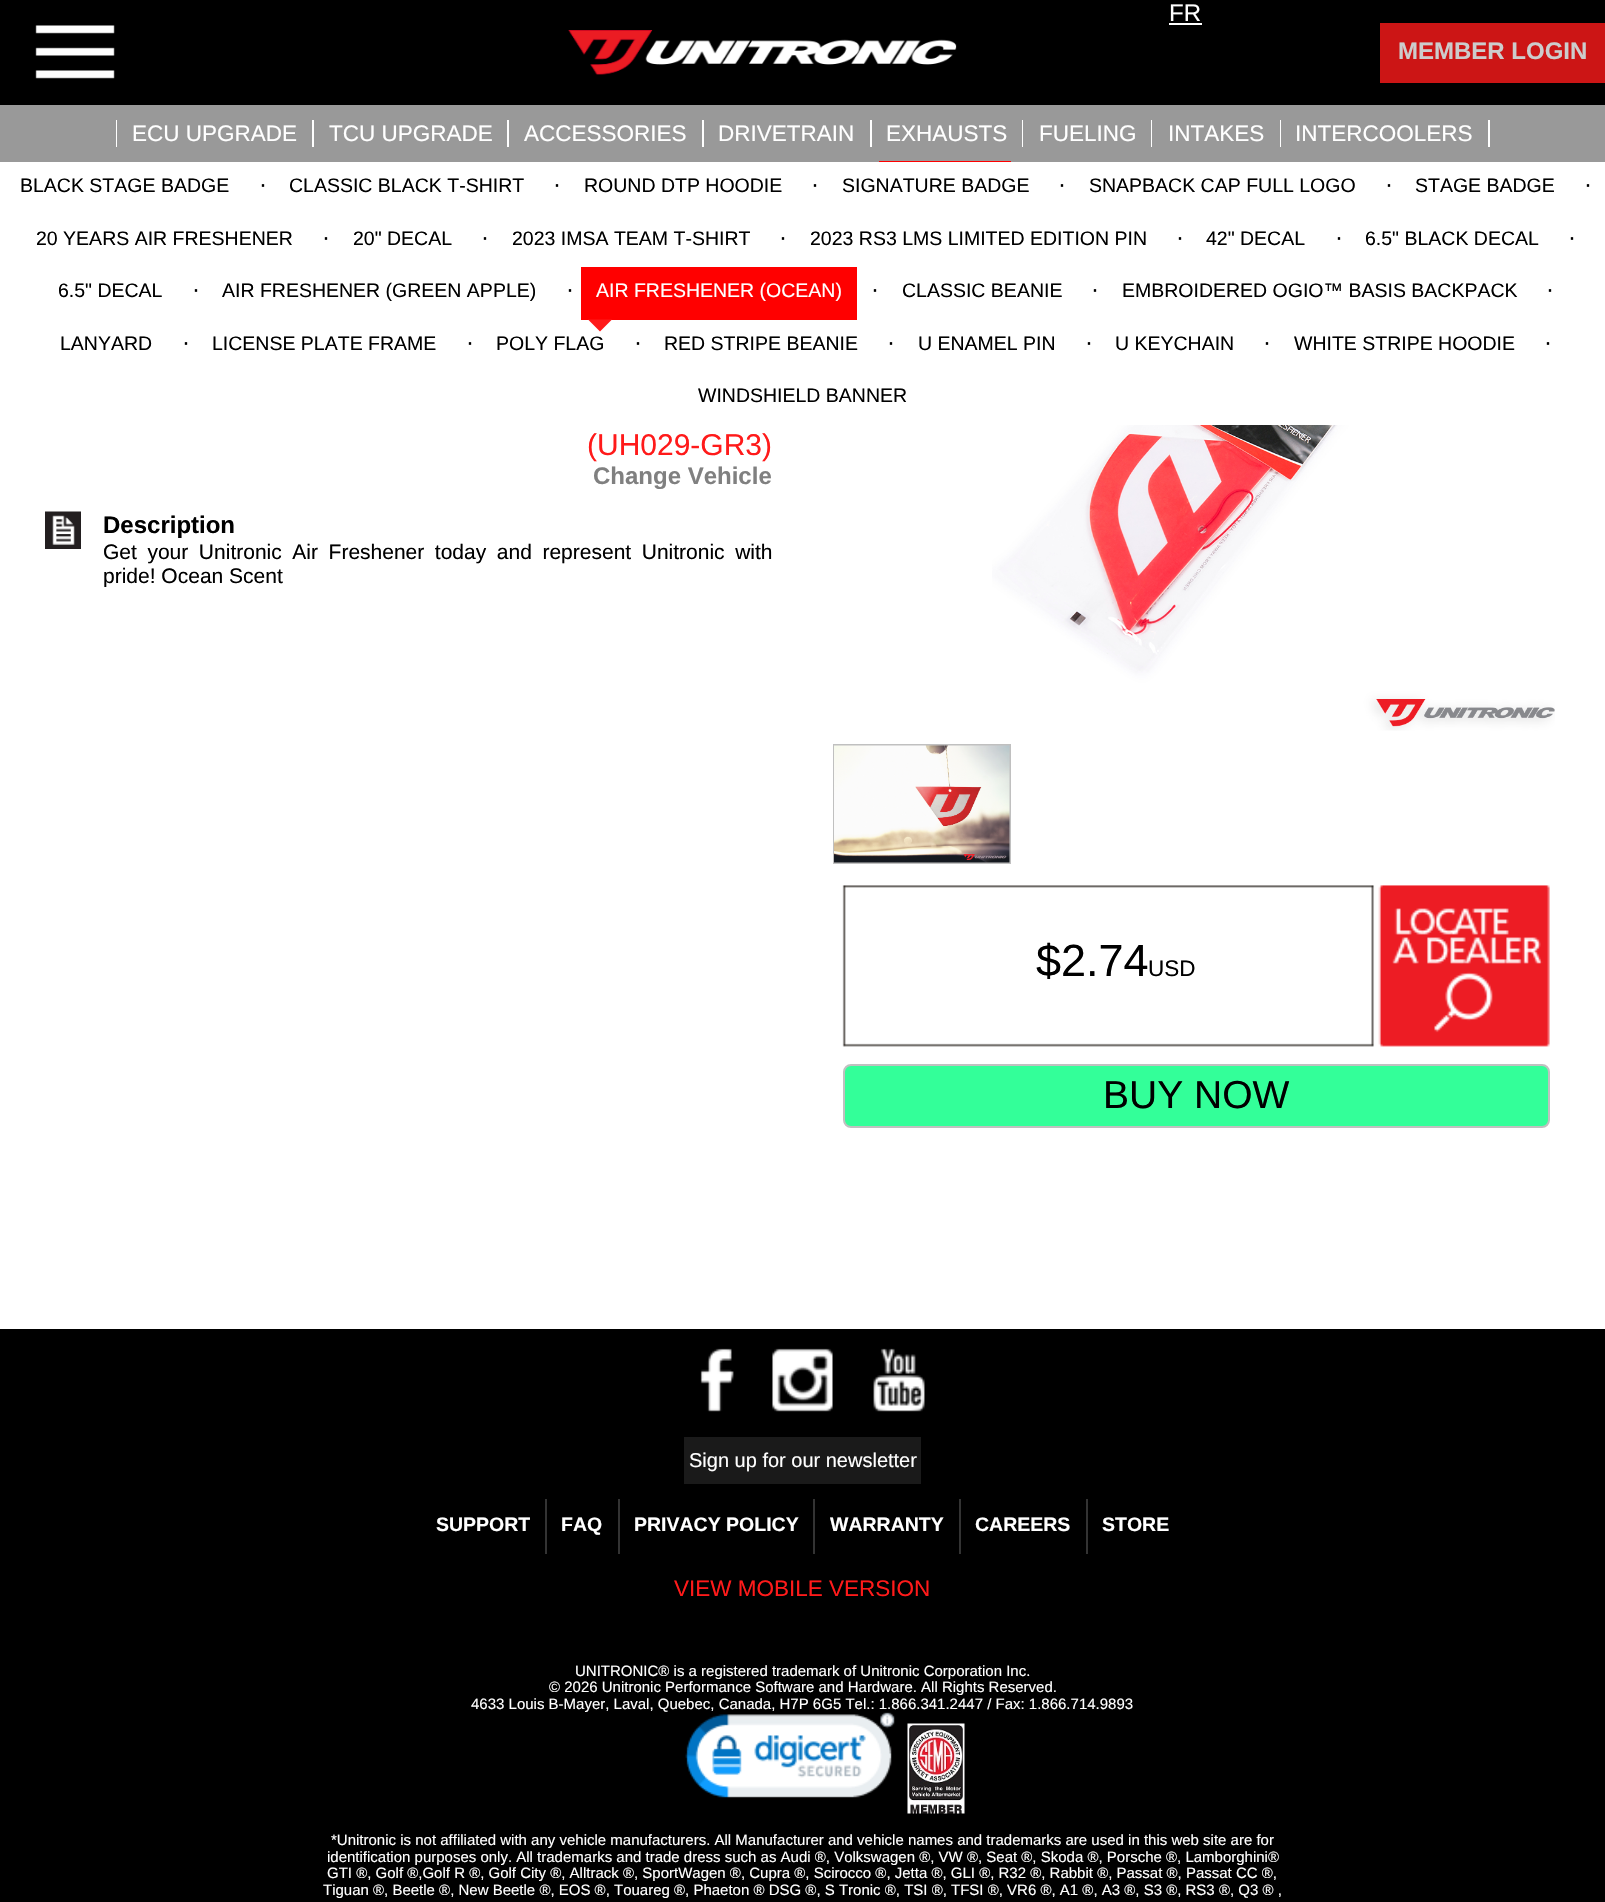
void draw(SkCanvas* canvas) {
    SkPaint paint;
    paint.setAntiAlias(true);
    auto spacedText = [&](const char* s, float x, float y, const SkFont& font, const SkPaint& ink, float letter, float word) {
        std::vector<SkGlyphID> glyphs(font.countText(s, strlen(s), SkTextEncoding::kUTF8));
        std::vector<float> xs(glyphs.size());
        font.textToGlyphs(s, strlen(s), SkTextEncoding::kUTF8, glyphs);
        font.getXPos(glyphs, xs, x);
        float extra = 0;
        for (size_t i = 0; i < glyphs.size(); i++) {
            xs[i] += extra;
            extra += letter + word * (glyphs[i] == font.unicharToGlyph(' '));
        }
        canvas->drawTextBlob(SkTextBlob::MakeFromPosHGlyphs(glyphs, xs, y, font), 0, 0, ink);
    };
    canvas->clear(0xFFFFFFFF);
    paint.setColor(0xFF000000);
    canvas->drawRect(SkRect::MakeXYWH(0, 0, 1605, 105), paint);
    canvas->drawImageRect(SkImages::DeferredFromEncodedData(SkData::MakeFromFileName("img1.png")), SkRect::MakeXYWH(35, 25, 80, 54), SkSamplingOptions());
    canvas->drawImageRect(SkImages::DeferredFromEncodedData(SkData::MakeFromFileName("img2.png")), SkRect::MakeXYWH(568, 30, 389, 45), SkSamplingOptions());
    SkFont font1(fontMgr->matchFamilyStyle("Liberation Sans", SkFontStyle::Normal()), 24);
    font1.setSubpixel(true);
    paint.setColor(0xFFFFFFFF);
    canvas->drawString("FR", 1169, 21, font1, paint);
    canvas->drawRect(SkRect::MakeXYWH(1169, 23, 33, 2), paint);
    paint.setColor(0xFFCC1515);
    canvas->drawRect(SkRect::MakeXYWH(1380, 23, 225, 60), paint);
    SkFont font2(fontMgr->matchFamilyStyle("Liberation Sans", SkFontStyle::Bold()), 24);
    font2.setSubpixel(true);
    paint.setColor(0xFFCCCCCC);
    canvas->drawString("MEMBER LOGIN", 1398, 59, font2, paint);
    paint.setColor(0xFF999999);
    canvas->drawRect(SkRect::MakeXYWH(0, 105, 1605, 57), paint);
    paint.setColor(0xFFFFFFFF);
    canvas->drawRect(SkRect::MakeXYWH(116, 120, 1, 27), paint);
    SkFont font3(fontMgr->matchFamilyStyle("Liberation Sans", SkFontStyle::Normal()), 22.5f);
    font3.setSubpixel(true);
    canvas->drawString("ECU UPGRADE", 132, 141, font3, paint);
    canvas->drawRect(SkRect::MakeXYWH(312, 120, 2, 27), paint);
    canvas->drawString("TCU UPGRADE", 329, 141, font3, paint);
    canvas->drawRect(SkRect::MakeXYWH(507, 120, 2, 27), paint);
    canvas->drawString("ACCESSORIES", 524, 141, font3, paint);
    canvas->drawRect(SkRect::MakeXYWH(702, 120, 2, 27), paint);
    canvas->drawString("DRIVETRAIN", 718, 141, font3, paint);
    canvas->drawRect(SkRect::MakeXYWH(870, 120, 2, 27), paint);
    canvas->drawString("EXHAUSTS", 886, 141, font3, paint);
    canvas->drawRect(SkRect::MakeXYWH(1022, 120, 1, 27), paint);
    canvas->drawString("FUELING", 1039, 141, font3, paint);
    canvas->drawRect(SkRect::MakeXYWH(1151, 120, 1, 27), paint);
    canvas->drawString("INTAKES", 1168, 141, font3, paint);
    canvas->drawRect(SkRect::MakeXYWH(1280, 120, 1, 27), paint);
    canvas->drawString("INTERCOOLERS", 1295, 141, font3, paint);
    canvas->drawRect(SkRect::MakeXYWH(1488, 120, 2, 27), paint);
    paint.setColor(0xFFFF0000);
    canvas->drawRect(SkRect::MakeXYWH(879, 161, 132, 1), paint);
    SkFont font4(fontMgr->matchFamilyStyle("Liberation Sans", SkFontStyle::Normal()), 19.5f);
    font4.setSubpixel(true);
    paint.setColor(0xFF000000);
    canvas->drawString("BLACK STAGE BADGE", 20, 192, font4, paint);
    canvas->drawString("·", 259, 192, font1, paint);
    canvas->drawString("CLASSIC BLACK T-SHIRT", 289, 192, font4, paint);
    canvas->drawString("·", 553, 192, font1, paint);
    canvas->drawString("ROUND DTP HOODIE", 584, 192, font4, paint);
    canvas->drawString("·", 811, 192, font1, paint);
    canvas->drawString("SIGNATURE BADGE", 842, 192, font4, paint);
    canvas->drawString("·", 1058, 192, font1, paint);
    canvas->drawString("SNAPBACK CAP FULL LOGO", 1089, 192, font4, paint);
    canvas->drawString("·", 1385, 192, font1, paint);
    canvas->drawString("STAGE BADGE", 1415, 192, font4, paint);
    canvas->drawString("·", 1584, 192, font1, paint);
    canvas->drawString("20 YEARS AIR FRESHENER", 36, 245, font4, paint);
    canvas->drawString("·", 322, 245, font1, paint);
    canvas->drawString("20\" DECAL", 353, 245, font4, paint);
    canvas->drawString("·", 481, 245, font1, paint);
    canvas->drawString("2023 IMSA TEAM T-SHIRT", 512, 245, font4, paint);
    canvas->drawString("·", 779, 245, font1, paint);
    canvas->drawString("2023 RS3 LMS LIMITED EDITION PIN", 810, 245, font4, paint);
    canvas->drawString("·", 1176, 245, font1, paint);
    canvas->drawString("42\" DECAL", 1206, 245, font4, paint);
    canvas->drawString("·", 1335, 245, font1, paint);
    canvas->drawString("6.5\" BLACK DECAL", 1365, 245, font4, paint);
    canvas->drawString("·", 1568, 245, font1, paint);
    canvas->drawString("6.5\" DECAL", 58, 297, font4, paint);
    canvas->drawString("·", 192, 297, font1, paint);
    canvas->drawString("AIR FRESHENER (GREEN APPLE)", 222, 297, font4, paint);
    canvas->drawString("·", 566, 297, font1, paint);
    paint.setColor(0xFFFF0000);
    canvas->drawRect(SkRect::MakeXYWH(581, 267, 276, 53), paint);
    paint.setColor(0xFFFFFFFF);
    canvas->drawString("AIR FRESHENER (OCEAN)", 596, 297, font4, paint);
    paint.setColor(0xFFFF1A1A);
    canvas->drawPath(SkPathBuilder().moveTo(588, 319.5f).lineTo(612, 319.5f).lineTo(600, 331.5f).close().detach(), paint);
    paint.setColor(0xFF000000);
    canvas->drawString("·", 871, 297, font1, paint);
    canvas->drawString("CLASSIC BEANIE", 902, 297, font4, paint);
    canvas->drawString("·", 1091, 297, font1, paint);
    canvas->drawString("EMBROIDERED OGIO™ BASIS BACKPACK", 1122, 297, font4, paint);
    canvas->drawString("·", 1546, 297, font1, paint);
    canvas->drawString("LANYARD", 60, 350, font4, paint);
    canvas->drawString("·", 182, 350, font1, paint);
    canvas->drawString("LICENSE PLATE FRAME", 212, 350, font4, paint);
    canvas->drawString("·", 466, 350, font1, paint);
    canvas->drawString("POLY FLAG", 496, 350, font4, paint);
    canvas->drawString("·", 634, 350, font1, paint);
    canvas->drawString("RED STRIPE BEANIE", 664, 350, font4, paint);
    canvas->drawString("·", 887, 350, font1, paint);
    canvas->drawString("U ENAMEL PIN", 918, 350, font4, paint);
    canvas->drawString("·", 1085, 350, font1, paint);
    canvas->drawString("U KEYCHAIN", 1115, 350, font4, paint);
    canvas->drawString("·", 1263, 350, font1, paint);
    canvas->drawString("WHITE STRIPE HOODIE", 1294, 350, font4, paint);
    canvas->drawString("·", 1544, 350, font1, paint);
    canvas->drawString("WINDSHIELD BANNER", 698, 402, font4, paint);
    SkFont font5(fontMgr->matchFamilyStyle("Liberation Sans", SkFontStyle::Normal()), 30);
    font5.setSubpixel(true);
    paint.setColor(0xFFFF1A1A);
    canvas->drawString("(UH029-GR3)", 587, 455, font5, paint);
    paint.setColor(0xFF808080);
    canvas->drawString("Change Vehicle", 593, 484, font2, paint);
    canvas->drawImageRect(SkImages::DeferredFromEncodedData(SkData::MakeFromFileName("img3.png")), SkRect::MakeXYWH(45, 511, 36, 38), SkSamplingOptions());
    paint.setColor(0xFF000000);
    canvas->drawString("Description", 103, 533, font2, paint);
    SkFont font6(fontMgr->matchFamilyStyle("Liberation Sans", SkFontStyle::Normal()), 21);
    font6.setSubpixel(true);
    spacedText("Get your Unitronic Air Freshener today and represent Unitronic with", 103, 559, font6, paint, 0, 4.75f);
    canvas->save();
    canvas->clipRect(SkRect::MakeXYWH(104, 539, 669, 48));
    canvas->drawString("pride! Ocean Scent", 103, 583, font6, paint);
    canvas->restore();
    canvas->drawImageRect(SkImages::DeferredFromEncodedData(SkData::MakeFromFileName("img4.png")), SkRect::MakeXYWH(992, 425, 563, 306), SkSamplingOptions());
    paint.setStyle(SkPaint::kStroke_Style);
    paint.setStrokeWidth(2);
    paint.setColor(0xFFC0C0C0);
    canvas->drawRect(SkRect::MakeXYWH(834, 745, 176, 118), paint);
    canvas->drawImageRect(SkImages::DeferredFromEncodedData(SkData::MakeFromFileName("img5.png")), SkRect::MakeXYWH(834, 745, 176, 118), SkSamplingOptions());
    canvas->drawImageRect(SkImages::DeferredFromEncodedData(SkData::MakeFromFileName("img6.png")), SkRect::MakeXYWH(842, 885, 708, 162), SkSamplingOptions());
    SkFont font7(fontMgr->matchFamilyStyle("Liberation Sans", SkFontStyle::Normal()), 45);
    font7.setSubpixel(true);
    paint.setStyle(SkPaint::kFill_Style);
    paint.setColor(0xFF000000);
    canvas->drawString("$2.74", 1036, 976, font7, paint);
    canvas->drawString("USD", 1148, 976, font3, paint);
    paint.setColor(0xFF33FF99);
    canvas->drawRoundRect(SkRect::MakeXYWH(844, 1065, 705, 62), 7, 7, paint);
    paint.setStyle(SkPaint::kStroke_Style);
    paint.setColor(0xFFC0C0C0);
    canvas->drawRoundRect(SkRect::MakeXYWH(844, 1065, 705, 62), 7, 7, paint);
    SkFont font8(fontMgr->matchFamilyStyle("Liberation Sans", SkFontStyle::Normal()), 39);
    font8.setSubpixel(true);
    paint.setStyle(SkPaint::kFill_Style);
    paint.setColor(0xFF000000);
    canvas->drawString("BUY NOW", 1103, 1108, font8, paint);
    canvas->drawRect(SkRect::MakeXYWH(0, 1329, 1605, 573), paint);
    canvas->drawImageRect(SkImages::DeferredFromEncodedData(SkData::MakeFromFileName("img7.png")), SkRect::MakeXYWH(700, 1348, 34, 64), SkSamplingOptions());
    canvas->drawImageRect(SkImages::DeferredFromEncodedData(SkData::MakeFromFileName("img8.png")), SkRect::MakeXYWH(772, 1348, 61, 64), SkSamplingOptions());
    canvas->drawImageRect(SkImages::DeferredFromEncodedData(SkData::MakeFromFileName("img9.png")), SkRect::MakeXYWH(873, 1348, 52, 64), SkSamplingOptions());
    paint.setColor(0xFF1A1A1A);
    canvas->drawRect(SkRect::MakeXYWH(684, 1437, 237, 47), paint);
    SkFont font9(fontMgr->matchFamilyStyle("Liberation Sans", SkFontStyle::Normal()), 20);
    font9.setSubpixel(true);
    paint.setColor(0xFFFFFFFF);
    canvas->drawString("Sign up for our newsletter", 689, 1467, font9, paint);
    SkFont font10(fontMgr->matchFamilyStyle("Liberation Sans", SkFontStyle::Bold()), 19.5f);
    font10.setSubpixel(true);
    canvas->drawString("SUPPORT", 436, 1531, font10, paint);
    paint.setColor(0xFF333333);
    canvas->drawRect(SkRect::MakeXYWH(545, 1499, 2, 55), paint);
    paint.setColor(0xFFFFFFFF);
    canvas->drawString("FAQ", 561, 1531, font10, paint);
    paint.setColor(0xFF333333);
    canvas->drawRect(SkRect::MakeXYWH(618, 1499, 2, 55), paint);
    paint.setColor(0xFFFFFFFF);
    canvas->drawString("PRIVACY POLICY", 634, 1531, font10, paint);
    paint.setColor(0xFF333333);
    canvas->drawRect(SkRect::MakeXYWH(813, 1499, 2, 55), paint);
    paint.setColor(0xFFFFFFFF);
    canvas->drawString("WARRANTY", 830, 1531, font10, paint);
    paint.setColor(0xFF333333);
    canvas->drawRect(SkRect::MakeXYWH(959, 1499, 2, 55), paint);
    paint.setColor(0xFFFFFFFF);
    canvas->drawString("CAREERS", 975, 1531, font10, paint);
    paint.setColor(0xFF333333);
    canvas->drawRect(SkRect::MakeXYWH(1086, 1499, 2, 55), paint);
    paint.setColor(0xFFFFFFFF);
    canvas->drawString("STORE", 1102, 1531, font10, paint);
    paint.setColor(0xFFFF1A1A);
    canvas->drawString("VIEW MOBILE VERSION", 674, 1596, font3, paint);
    SkFont font11(fontMgr->matchFamilyStyle("Liberation Sans", SkFontStyle::Normal()), 15);
    font11.setSubpixel(true);
    paint.setColor(0xFFFFFFFF);
    canvas->drawString("UNITRONIC® is a registered trademark of Unitronic Corporation Inc.", 575, 1676, font11, paint);
    canvas->drawString("© 2026 Unitronic Performance Software and Hardware. All Rights Reserved.", 549, 1692, font11, paint);
    canvas->drawString("4633 Louis B-Mayer, Laval, Quebec, Canada, H7P 6G5 Tel.: 1.866.341.2447 / Fax: 1.866.714.9893", 471, 1709, font11, paint);
    canvas->drawImageRect(SkImages::DeferredFromEncodedData(SkData::MakeFromFileName("img10.png")), SkRect::MakeXYWH(685, 1712, 210, 86), SkSamplingOptions());
    canvas->drawImageRect(SkImages::DeferredFromEncodedData(SkData::MakeFromFileName("img11.png")), SkRect::MakeXYWH(907, 1723, 58, 91), SkSamplingOptions());
    canvas->drawString("*Unitronic is not affiliated with any vehicle manufacturers. All Manufacturer and vehicle names and trademarks are used in this web site are for", 331, 1845, font11, paint);
    canvas->drawString("identification purposes only. All trademarks and trade dress such as Audi ®, Volkswagen ®, VW ®, Seat ®, Skoda ®, Porsche ®, Lamborghini®", 327, 1862, font11, paint);
    canvas->drawString("GTI ®, Golf ®,Golf R ®, Golf City ®, Alltrack ®, SportWagen ®, Cupra ®, Scirocco ®, Jetta ®, GLI ®, R32 ®, Rabbit ®, Passat ®, Passat CC ®,", 327, 1878, font11, paint);
    canvas->drawString("Tiguan ®, Beetle ®, New Beetle ®, EOS ®, Touareg ®, Phaeton ® DSG ®, S Tronic ®, TSI ®, TFSI ®, VR6 ®, A1 ®, A3 ®, S3 ®, RS3 ®, Q3 ® ,", 323, 1895, font11, paint);
}
